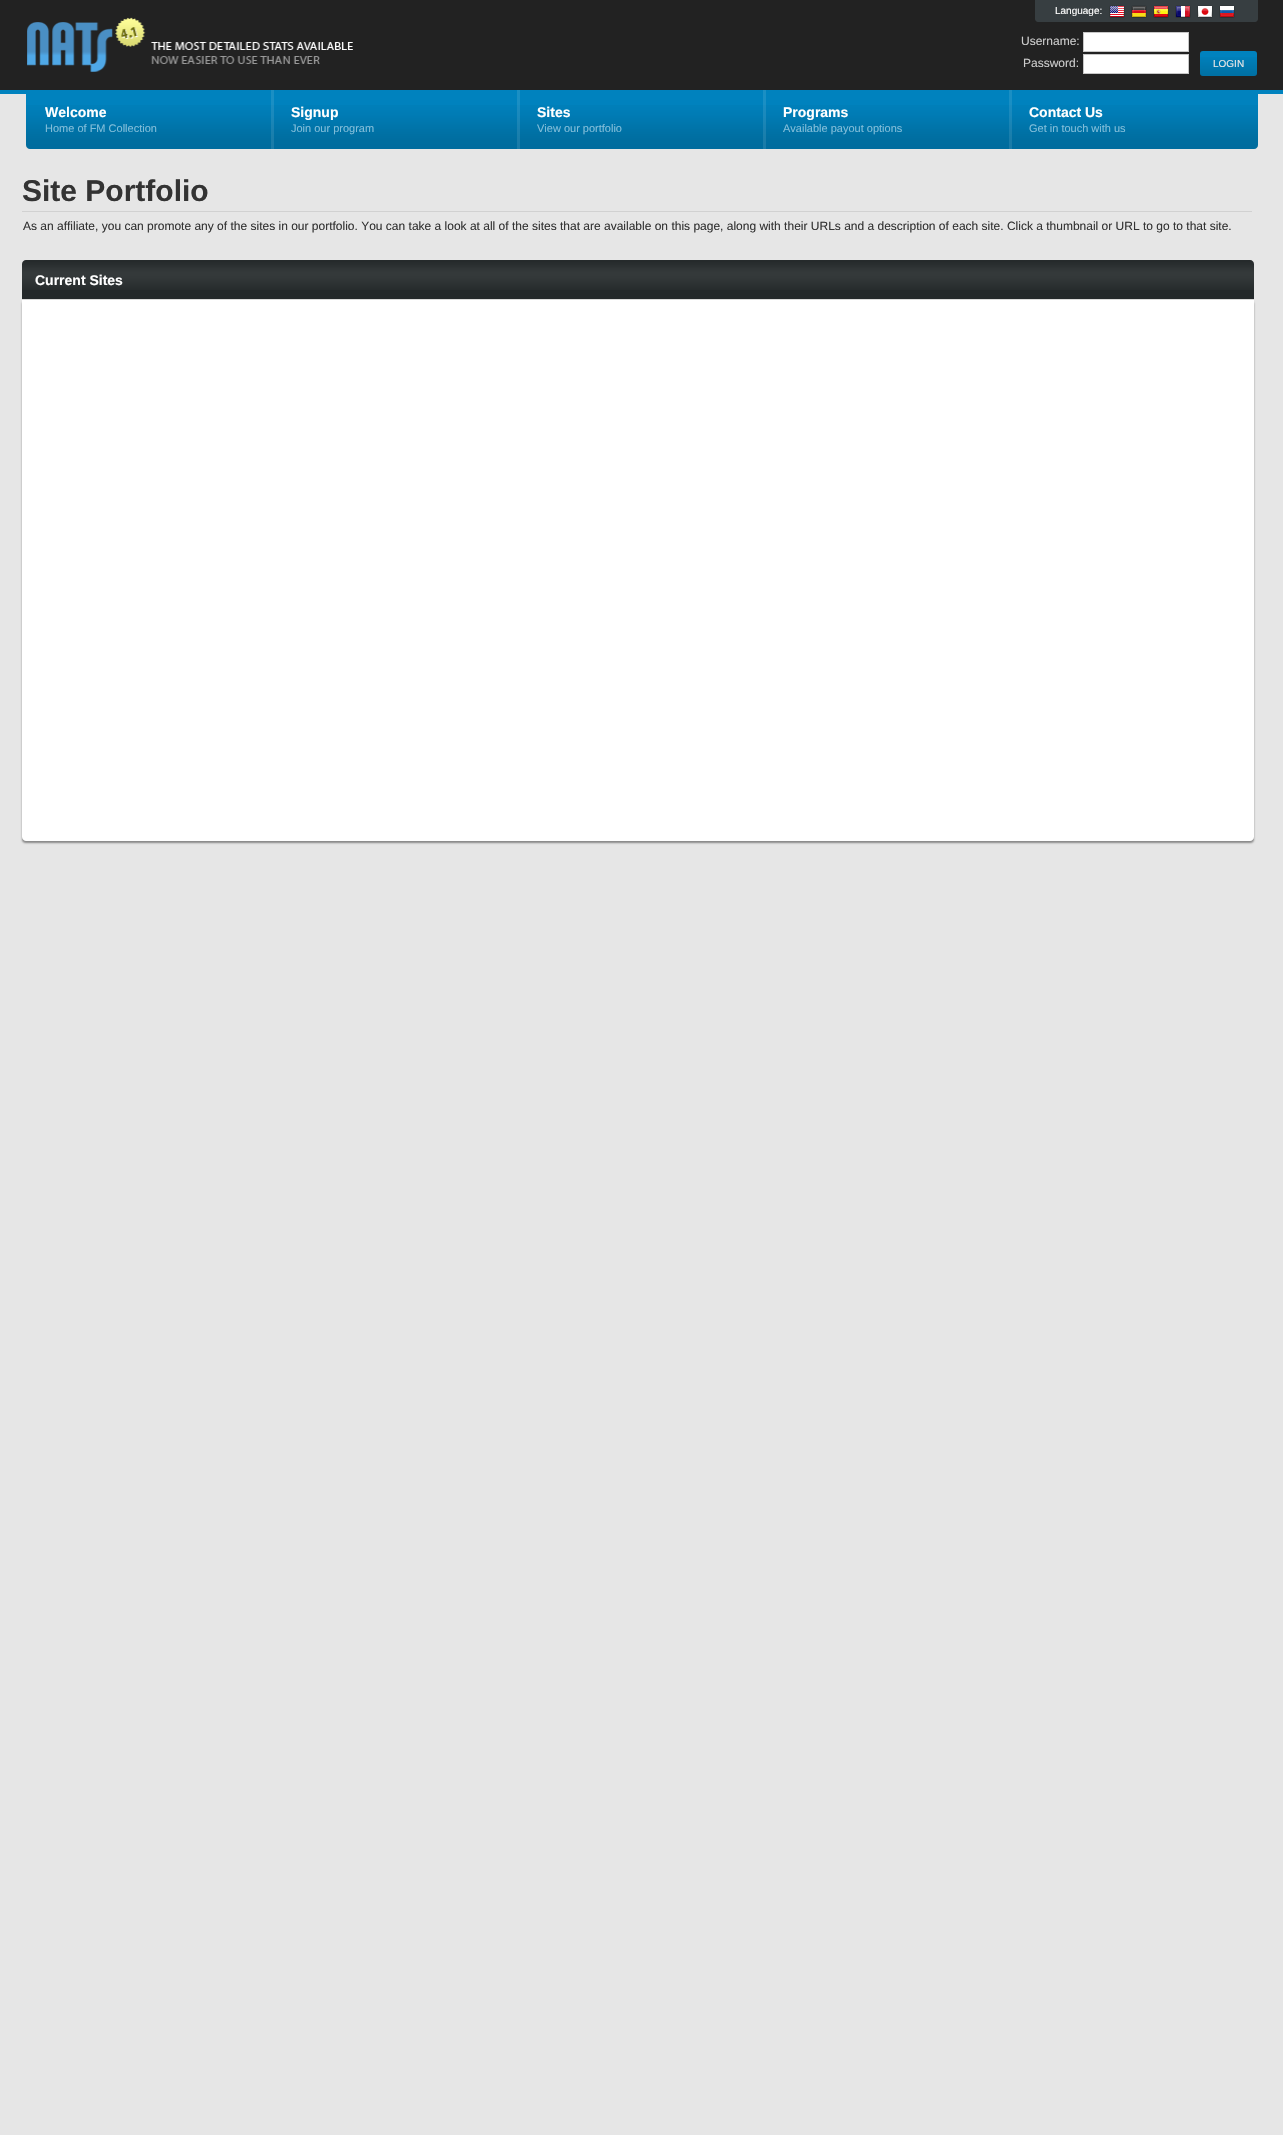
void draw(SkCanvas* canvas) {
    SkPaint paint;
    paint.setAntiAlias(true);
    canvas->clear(0xFFE6E6E6);
    paint.setColor(0xFF0082BE);
    canvas->drawRect(SkRect::MakeXYWH(0, 90, 1283, 4), paint);
    paint.setColor(0xFF222222);
    canvas->drawRect(SkRect::MakeXYWH(0, 0, 1283, 90), paint);
    canvas->drawImageRect(SkImages::DeferredFromEncodedData(SkData::MakeFromFileName("img1.png")), SkRect::MakeXYWH(27, 17, 326, 55), SkSamplingOptions());
    paint.setColor(0xFF373E41);
    canvas->drawPath(SkPathBuilder().moveTo(1035, 0).lineTo(1258, 0).lineTo(1258, 19).cubicTo(1258, 20.5f, 1256.5f, 22, 1255, 22).lineTo(1038, 22).cubicTo(1036.5f, 22, 1035, 20.5f, 1035, 19).close().detach(), paint);
    SkFont font1(fontMgr->matchFamilyStyle("Liberation Sans", SkFontStyle::Normal()), 10);
    font1.setSubpixel(true);
    paint.setColor(0xFFFFFFFF);
    canvas->drawString("Language:", 1055, 14, font1, paint);
    canvas->drawImageRect(SkImages::DeferredFromEncodedData(SkData::MakeFromFileName("img2.png")), SkRect::MakeXYWH(1109, 5, 16, 13), SkSamplingOptions());
    canvas->drawImageRect(SkImages::DeferredFromEncodedData(SkData::MakeFromFileName("img3.png")), SkRect::MakeXYWH(1131, 5, 16, 13), SkSamplingOptions());
    canvas->drawImageRect(SkImages::DeferredFromEncodedData(SkData::MakeFromFileName("img4.png")), SkRect::MakeXYWH(1153, 5, 16, 13), SkSamplingOptions());
    canvas->drawImageRect(SkImages::DeferredFromEncodedData(SkData::MakeFromFileName("img5.png")), SkRect::MakeXYWH(1175, 5, 16, 13), SkSamplingOptions());
    canvas->drawImageRect(SkImages::DeferredFromEncodedData(SkData::MakeFromFileName("img6.png")), SkRect::MakeXYWH(1197, 5, 16, 13), SkSamplingOptions());
    canvas->drawImageRect(SkImages::DeferredFromEncodedData(SkData::MakeFromFileName("img7.png")), SkRect::MakeXYWH(1219, 5, 16, 13), SkSamplingOptions());
    SkFont font2(fontMgr->matchFamilyStyle("Liberation Sans", SkFontStyle::Normal()), 12);
    font2.setSubpixel(true);
    paint.setColor(0xFFCCCCCC);
    canvas->drawString("Username:", 1021, 45, font2, paint);
    paint.setColor(0xFFFFFFFF);
    canvas->drawRect(SkRect::MakeXYWH(1083.5f, 32.5f, 105, 19), paint);
    paint.setStyle(SkPaint::kStroke_Style);
    paint.setStrokeWidth(1);
    paint.setColor(0xFFC7C7C7);
    canvas->drawRect(SkRect::MakeXYWH(1083.5f, 32.5f, 105, 19), paint);
    paint.setStyle(SkPaint::kFill_Style);
    paint.setColor(0xFFCCCCCC);
    canvas->drawString("Password:", 1023, 67, font2, paint);
    paint.setColor(0xFFFFFFFF);
    canvas->drawRect(SkRect::MakeXYWH(1083.5f, 54.5f, 105, 19), paint);
    paint.setStyle(SkPaint::kStroke_Style);
    paint.setColor(0xFFC7C7C7);
    canvas->drawRect(SkRect::MakeXYWH(1083.5f, 54.5f, 105, 19), paint);
    paint.setStyle(SkPaint::kFill_Style);
    paint.setColor(0xFF0082BE);
    canvas->drawRoundRect(SkRect::MakeXYWH(1200, 51, 57, 25), 3, 3, paint);
    canvas->drawImageRect(SkImages::DeferredFromEncodedData(SkData::MakeFromFileName("img8.png")), SkRect::MakeXYWH(1200, 57, 57, 19), SkSamplingOptions());
    paint.setColor(0xFFE6E6E6);
    canvas->drawString("LOGIN", 1213, 67, font1, paint);
    paint.setColor(0xFF0082BE);
    canvas->drawPath(SkPathBuilder().moveTo(26, 90).lineTo(1258, 90).lineTo(1258, 145).cubicTo(1258, 147, 1256, 149, 1254, 149).lineTo(30, 149).cubicTo(28, 149, 26, 147, 26, 145).close().detach(), paint);
    canvas->drawImageRect(SkImages::DeferredFromEncodedData(SkData::MakeFromFileName("img9.png")), SkRect::MakeXYWH(26, 105, 1232, 44), SkSamplingOptions());
    SkFont font3(fontMgr->matchFamilyStyle("Liberation Sans", SkFontStyle::Bold()), 14);
    font3.setSubpixel(true);
    paint.setColor(0xFFFFFFFF);
    canvas->drawString("Welcome", 45, 117, font3, paint);
    SkFont font4(fontMgr->matchFamilyStyle("Liberation Sans", SkFontStyle::Normal()), 11);
    font4.setSubpixel(true);
    paint.setColor(0xFF82BEDA);
    canvas->drawString("Home of FM Collection", 45, 132, font4, paint);
    paint.setColor(0x1AFFFFFF);
    canvas->drawRect(SkRect::MakeXYWH(271, 90, 3, 59), paint);
    paint.setColor(0xFFFFFFFF);
    canvas->drawString("Signup", 291, 117, font3, paint);
    paint.setColor(0xFF82BEDA);
    canvas->drawString("Join our program", 291, 132, font4, paint);
    paint.setColor(0x1AFFFFFF);
    canvas->drawRect(SkRect::MakeXYWH(517, 90, 3, 59), paint);
    paint.setColor(0xFFFFFFFF);
    canvas->drawString("Sites", 537, 117, font3, paint);
    paint.setColor(0xFF82BEDA);
    canvas->drawString("View our portfolio", 537, 132, font4, paint);
    paint.setColor(0x1AFFFFFF);
    canvas->drawRect(SkRect::MakeXYWH(763, 90, 3, 59), paint);
    paint.setColor(0xFFFFFFFF);
    canvas->drawString("Programs", 783, 117, font3, paint);
    paint.setColor(0xFF82BEDA);
    canvas->drawString("Available payout options", 783, 132, font4, paint);
    paint.setColor(0x1AFFFFFF);
    canvas->drawRect(SkRect::MakeXYWH(1009, 90, 3, 59), paint);
    paint.setColor(0xFFFFFFFF);
    canvas->drawString("Contact Us", 1029, 117, font3, paint);
    paint.setColor(0xFF82BEDA);
    canvas->drawString("Get in touch with us", 1029, 132, font4, paint);
    paint.setColor(0xFFD1D1D1);
    canvas->drawRect(SkRect::MakeXYWH(22, 211, 1230, 1), paint);
    SkFont font5(fontMgr->matchFamilyStyle("Liberation Sans", SkFontStyle::Bold()), 30);
    font5.setSubpixel(true);
    paint.setColor(0xFF333333);
    canvas->drawString("Site Portfolio", 22, 201, font5, paint);
    canvas->drawString("As an affiliate, you can promote any of the sites in our portfolio. You can take a look at all of the sites that are available on this page, along with their URLs and a description of each site. Click a thumbnail or URL to go to that site.", 23, 230, font2, paint);
    paint.setColor(0xFF888888);
    paint.setMaskFilter(SkMaskFilter::MakeBlur(kNormal_SkBlurStyle, 1));
    canvas->drawRoundRect(SkRect::MakeXYWH(22, 301, 1232, 542), 4, 4, paint);
    paint.setMaskFilter(nullptr);
    paint.setColor(0xFF23282A);
    canvas->drawPath(SkPathBuilder().moveTo(26, 260).lineTo(1250, 260).cubicTo(1252, 260, 1254, 262, 1254, 264).lineTo(1254, 299).lineTo(22, 299).lineTo(22, 264).cubicTo(22, 262, 24, 260, 26, 260).close().detach(), paint);
    canvas->drawImageRect(SkImages::DeferredFromEncodedData(SkData::MakeFromFileName("img10.png")), SkRect::MakeXYWH(22, 260, 1232, 30), SkSamplingOptions());
    paint.setColor(0xFFFFFFFF);
    canvas->drawString("Current Sites", 35, 285, font3, paint);
    canvas->drawPath(SkPathBuilder().moveTo(22, 299).lineTo(1254, 299).lineTo(1254, 837).cubicTo(1254, 839, 1252, 841, 1250, 841).lineTo(26, 841).cubicTo(24, 841, 22, 839, 22, 837).close().detach(), paint);
    paint.setColor(0xFFD9D9D9);
    canvas->drawRect(SkRect::MakeXYWH(22, 299, 1232, 1), paint);
}
